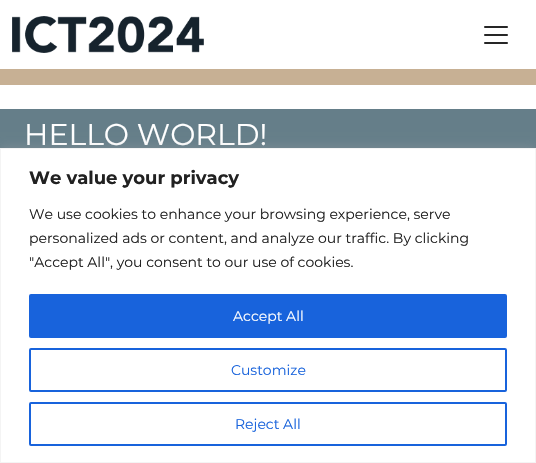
void draw(SkCanvas* canvas) {
    SkPaint paint;
    paint.setAntiAlias(true);
    canvas->clear(0xFFFFFFFF);
    canvas->drawImageRect(SkImages::DeferredFromEncodedData(SkData::MakeFromFileName("img1.png")), SkRect::MakeXYWH(12, 16, 192, 37), SkSamplingOptions());
    canvas->drawImageRect(SkImages::DeferredFromEncodedData(SkData::MakeFromFileName("img2.png")), SkRect::MakeXYWH(484, 26, 24, 18), SkSamplingOptions());
    paint.setColor(0xFFC7B094);
    canvas->drawRect(SkRect::MakeXYWH(0, 69, 536, 16), paint);
    paint.setColor(0xFF657E89);
    canvas->drawRect(SkRect::MakeXYWH(0, 109, 536, 39), paint);
    SkFont font1(fontMgr->matchFamilyStyle("Montserrat", SkFontStyle::Normal()), 30);
    font1.setSubpixel(true);
    paint.setColor(0xFFFFFFFF);
    canvas->drawString("HELLO WORLD!", 24, 145, font1, paint);
    paint.setColor(0x4DACABAB);
    paint.setMaskFilter(SkMaskFilter::MakeBlur(kNormal_SkBlurStyle, 5));
    canvas->drawRect(SkRect::MakeXYWH(0, 147, 536, 315), paint);
    paint.setMaskFilter(nullptr);
    paint.setColor(0xFFFFFFFF);
    canvas->drawRect(SkRect::MakeXYWH(0.5f, 148.5f, 535, 314), paint);
    paint.setStyle(SkPaint::kStroke_Style);
    paint.setStrokeWidth(1);
    paint.setColor(0xFFF4F4F4);
    canvas->drawRect(SkRect::MakeXYWH(0.5f, 148.5f, 535, 314), paint);
    SkFont font2(fontMgr->matchFamilyStyle("Montserrat", SkFontStyle::Bold()), 18);
    font2.setSubpixel(true);
    paint.setStyle(SkPaint::kFill_Style);
    paint.setColor(0xFF212121);
    canvas->drawString("We value your privacy", 29, 184, font2, paint);
    SkFont font3(fontMgr->matchFamilyStyle("Montserrat", SkFontStyle::Normal()), 14);
    font3.setSubpixel(true);
    canvas->drawString("We use cookies to enhance your browsing experience, serve", 29, 219, font3, paint);
    canvas->drawString("personalized ads or content, and analyze our traffic. By clicking", 29, 243, font3, paint);
    canvas->drawString("\"Accept All\", you consent to our use of cookies.", 29, 267, font3, paint);
    paint.setColor(0xFF1863DC);
    canvas->drawRoundRect(SkRect::MakeXYWH(30, 295, 476, 42), 1, 1, paint);
    paint.setStyle(SkPaint::kStroke_Style);
    paint.setStrokeWidth(2);
    canvas->drawRoundRect(SkRect::MakeXYWH(30, 295, 476, 42), 1, 1, paint);
    paint.setStyle(SkPaint::kFill_Style);
    paint.setColor(0xFFFFFFFF);
    canvas->drawString("Accept All", 233, 321, font3, paint);
    paint.setStyle(SkPaint::kStroke_Style);
    paint.setColor(0xFF1863DC);
    canvas->drawRoundRect(SkRect::MakeXYWH(30, 349, 476, 42), 1, 1, paint);
    paint.setStyle(SkPaint::kFill_Style);
    canvas->drawString("Customize", 231, 375, font3, paint);
    paint.setStyle(SkPaint::kStroke_Style);
    canvas->drawRoundRect(SkRect::MakeXYWH(30, 403, 476, 42), 1, 1, paint);
    paint.setStyle(SkPaint::kFill_Style);
    canvas->drawString("Reject All", 235, 429, font3, paint);
}
